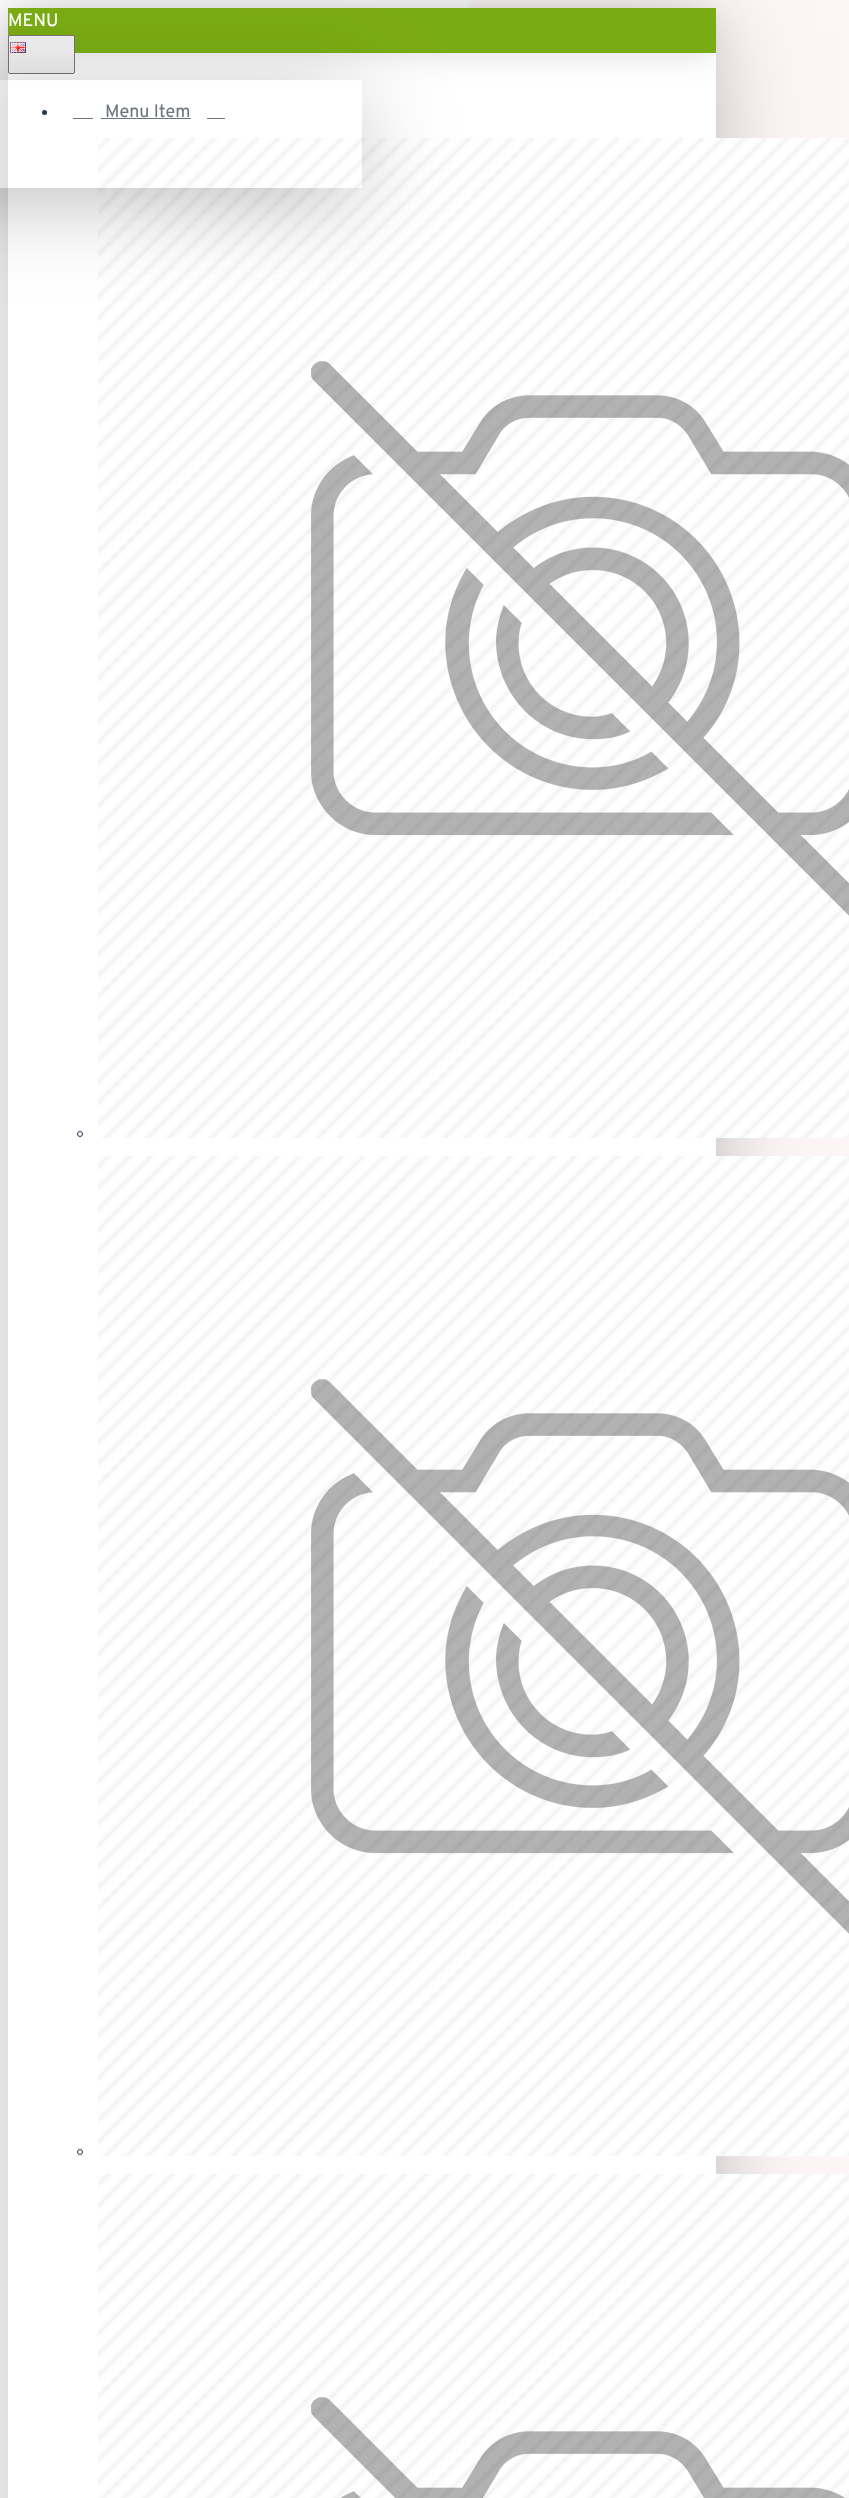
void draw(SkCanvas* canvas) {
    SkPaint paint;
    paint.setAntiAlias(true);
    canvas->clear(0xFFFFFFFF);
    canvas->drawImageRect(SkImages::DeferredFromEncodedData(SkData::MakeFromFileName("img1.png")), SkRect::MakeXYWH(312, 0, 537, 2174), SkSamplingOptions());
    paint.setColor(0x4D000000);
    paint.setMaskFilter(SkMaskFilter::MakeBlur(kNormal_SkBlurStyle, 45));
    canvas->drawRect(SkRect::MakeXYWH(18, 33, 688, 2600), paint);
    paint.setMaskFilter(nullptr);
    paint.setColor(0xFFFFFFFF);
    canvas->drawRect(SkRect::MakeXYWH(8, 53, 708, 2445), paint);
    paint.setColor(0x26000000);
    paint.setMaskFilter(SkMaskFilter::MakeBlur(kNormal_SkBlurStyle, 15));
    canvas->drawRect(SkRect::MakeXYWH(13, 18, 698, 35), paint);
    paint.setMaskFilter(nullptr);
    paint.setColor(0xFF79AB14);
    canvas->drawRect(SkRect::MakeXYWH(8, 8, 708, 45), paint);
    paint.setColor(0xFFEFEFEF);
    canvas->drawRoundRect(SkRect::MakeXYWH(8.5f, 35.5f, 66, 38), 1.5f, 1.5f, paint);
    paint.setStyle(SkPaint::kStroke_Style);
    paint.setStrokeWidth(1);
    paint.setColor(0xFF767676);
    canvas->drawRoundRect(SkRect::MakeXYWH(8.5f, 35.5f, 66, 38), 1.5f, 1.5f, paint);
    canvas->drawImageRect(SkImages::DeferredFromEncodedData(SkData::MakeFromFileName("img2.png")), SkRect::MakeXYWH(10, 42, 16, 11), SkSamplingOptions());
    paint.setStyle(SkPaint::kFill_Style);
    paint.setColor(0xFF233851);
    canvas->drawCircle(44.5f, 112.5f, 2.5f, paint);
    paint.setColor(0xFF6D767D);
    canvas->drawRect(SkRect::MakeXYWH(73, 118, 20, 1), paint);
    canvas->drawRect(SkRect::MakeXYWH(101, 118, 90, 1), paint);
    canvas->drawRect(SkRect::MakeXYWH(207, 118, 18, 1), paint);
    canvas->drawImageRect(SkImages::DeferredFromEncodedData(SkData::MakeFromFileName("img3.png")), SkRect::MakeXYWH(98, 138, 751, 1000), SkSamplingOptions());
    canvas->save();
    canvas->clipPath(SkPathBuilder(SkPathFillType::kEvenOdd).moveTo(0, 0).lineTo(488, 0).lineTo(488, 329).lineTo(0, 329).close().moveTo(-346, 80).lineTo(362, 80).lineTo(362, 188).lineTo(-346, 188).close().detach(), true);
    paint.setColor(0x4D000000);
    paint.setMaskFilter(SkMaskFilter::MakeBlur(kNormal_SkBlurStyle, 45));
    canvas->drawRect(SkRect::MakeXYWH(-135, 105, 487, 88), paint);
    paint.setMaskFilter(nullptr);
    canvas->restore();
    SkFont font1(fontMgr->matchFamilyStyle("Overpass", SkFontStyle::Normal()), 18);
    font1.setSubpixel(true);
    paint.setColor(0xFFFFFFFF);
    canvas->drawString("MENU", 8, 26, font1, paint);
    paint.setColor(0xFF6D767D);
    canvas->drawString("Menu Item", 105, 117, font1, paint);
    paint.setStyle(SkPaint::kStroke_Style);
    paint.setColor(0xFF233851);
    canvas->drawCircle(80, 1134, 2.5f, paint);
    canvas->drawCircle(80, 2152, 2.5f, paint);
    canvas->drawImageRect(SkImages::DeferredFromEncodedData(SkData::MakeFromFileName("img3.png")), SkRect::MakeXYWH(98, 1156, 751, 1000), SkSamplingOptions());
    canvas->drawImageRect(SkImages::DeferredFromEncodedData(SkData::MakeFromFileName("img4.png")), SkRect::MakeXYWH(98, 2174, 751, 324), SkSamplingOptions());
}
